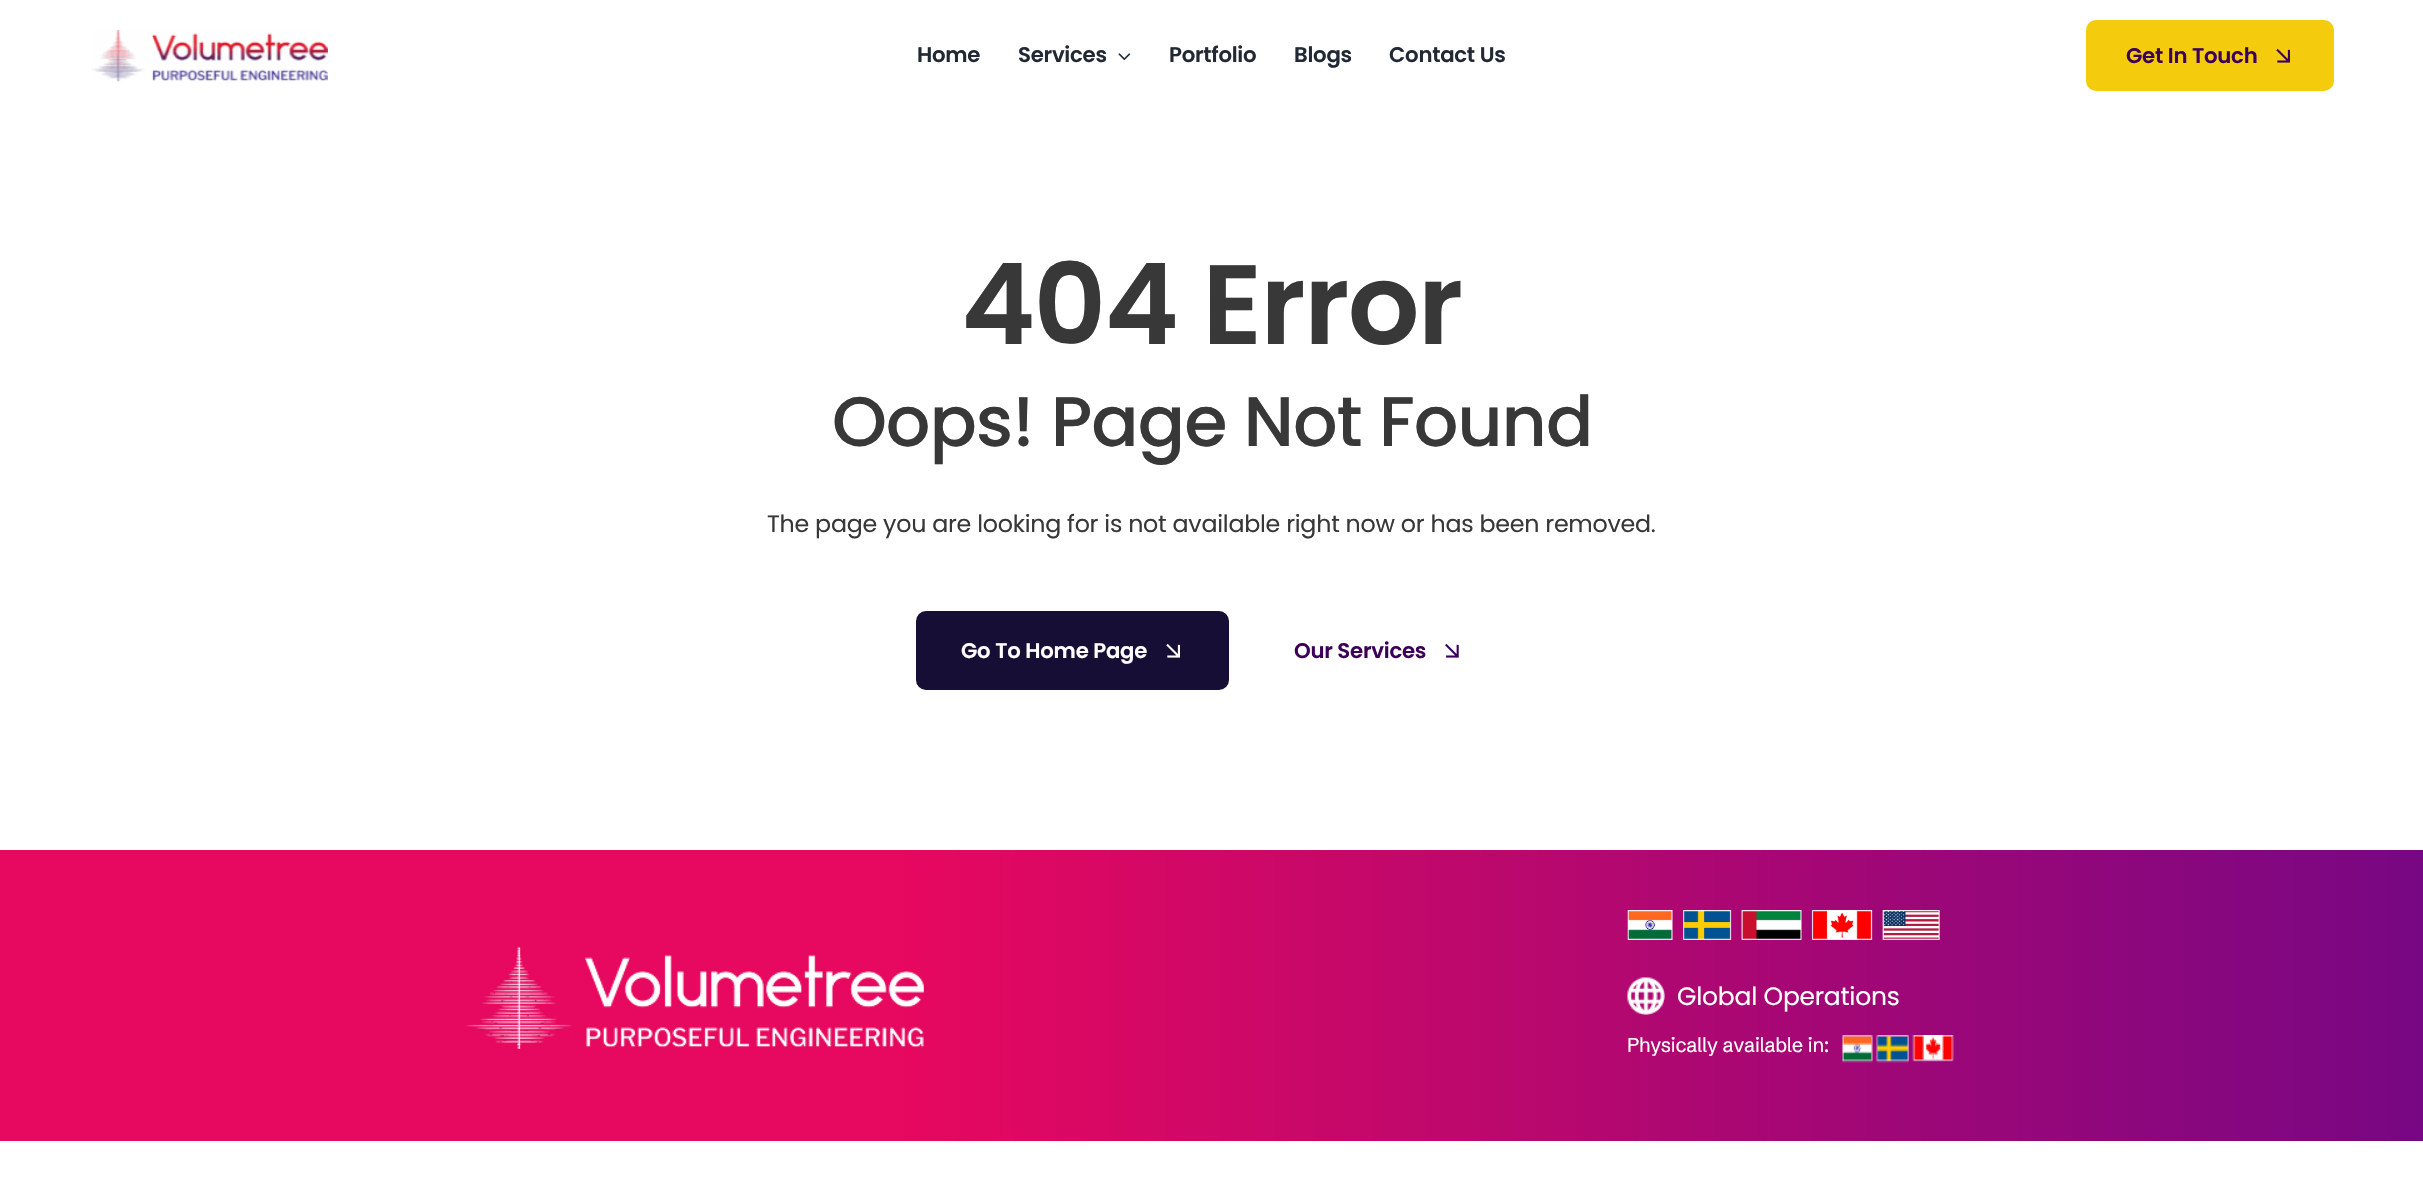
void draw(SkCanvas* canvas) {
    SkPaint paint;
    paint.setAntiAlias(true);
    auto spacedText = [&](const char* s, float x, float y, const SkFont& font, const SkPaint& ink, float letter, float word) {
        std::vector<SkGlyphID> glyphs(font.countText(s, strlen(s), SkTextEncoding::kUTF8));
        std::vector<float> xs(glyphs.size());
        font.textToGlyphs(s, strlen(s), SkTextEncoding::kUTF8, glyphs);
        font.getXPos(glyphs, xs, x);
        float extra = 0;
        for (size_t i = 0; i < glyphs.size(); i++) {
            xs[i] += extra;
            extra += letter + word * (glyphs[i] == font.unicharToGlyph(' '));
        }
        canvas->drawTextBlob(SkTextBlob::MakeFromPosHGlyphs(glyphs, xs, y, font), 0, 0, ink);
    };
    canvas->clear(0xFFFFFFFF);
    canvas->drawImageRect(SkImages::DeferredFromEncodedData(SkData::MakeFromFileName("img1.png")), SkRect::MakeXYWH(91, 30, 237, 52), SkSamplingOptions());
    SkFont font1(fontMgr->matchFamilyStyle("Poppins", SkFontStyle(600, SkFontStyle::kNormal_Width, SkFontStyle::kUpright_Slant)), 21.25f);
    font1.setSubpixel(true);
    paint.setColor(0xFF212934);
    spacedText("Home", 917, 62, font1, paint, -0.25f, 0);
    spacedText("Services", 1018, 62, font1, paint, -0.25f, 0);
    canvas->drawImageRect(SkImages::DeferredFromEncodedData(SkData::MakeFromFileName("img2.png")), SkRect::MakeXYWH(1118, 53, 13, 8), SkSamplingOptions());
    spacedText("Portfolio", 1169, 62, font1, paint, -0.25f, 0);
    spacedText("Blogs", 1294, 62, font1, paint, -0.25f, 0);
    spacedText("Contact Us", 1389, 62, font1, paint, -0.25f, 0);
    paint.setColor(0xFFF5CC0D);
    canvas->drawRoundRect(SkRect::MakeXYWH(2086, 20, 248, 71), 10, 10, paint);
    paint.setColor(0xFF3D005A);
    spacedText("Get In Touch", 2126, 63, font1, paint, -0.25f, 0);
    canvas->drawImageRect(SkImages::DeferredFromEncodedData(SkData::MakeFromFileName("img3.png")), SkRect::MakeXYWH(2276, 48, 14, 15), SkSamplingOptions());
    SkFont font2(fontMgr->matchFamilyStyle("Poppins", SkFontStyle(600, SkFontStyle::kNormal_Width, SkFontStyle::kUpright_Slant)), 112.5f);
    font2.setSubpixel(true);
    paint.setColor(0xFF383838);
    spacedText("404 Error", 961, 344, font2, paint, -1.75f, 0);
    SkFont font3(fontMgr->matchFamilyStyle("Poppins", SkFontStyle(500, SkFontStyle::kNormal_Width, SkFontStyle::kUpright_Slant)), 70);
    font3.setSubpixel(true);
    spacedText("Oops! Page Not Found", 832, 446, font3, paint, -1.05f, 0);
    SkFont font4(fontMgr->matchFamilyStyle("Poppins", SkFontStyle::Normal()), 23.75f);
    font4.setSubpixel(true);
    spacedText("The page you are looking for is not available right now or has been removed.", 767, 532, font4, paint, -0.25f, 0);
    paint.setColor(0xFF160E34);
    canvas->drawRoundRect(SkRect::MakeXYWH(916, 611, 313, 79), 10, 10, paint);
    paint.setColor(0xFFFFFFFF);
    spacedText("Go To Home Page", 961, 658, font1, paint, -0.25f, 0);
    canvas->drawImageRect(SkImages::DeferredFromEncodedData(SkData::MakeFromFileName("img4.png")), SkRect::MakeXYWH(1166, 643, 14, 15), SkSamplingOptions());
    paint.setColor(0xFF3D005A);
    spacedText("Our Services", 1294, 658, font1, paint, -0.25f, 0);
    canvas->drawImageRect(SkImages::DeferredFromEncodedData(SkData::MakeFromFileName("img5.png")), SkRect::MakeXYWH(1445, 643, 14, 15), SkSamplingOptions());
    {
        const SkColor colors[] = {0xFFE7085F, 0xFF780783};
        const float stops[] = {0.37f, 1};
        const SkPoint ends[] = {{0, 996}, {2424, 996}};
        paint.setShader(SkGradientShader::MakeLinear(ends, colors, stops, 2, SkTileMode::kClamp));
        paint.setAlpha(255);
    }
    canvas->drawRect(SkRect::MakeXYWH(0, 850, 2423, 291), paint);
    canvas->drawImageRect(SkImages::DeferredFromEncodedData(SkData::MakeFromFileName("img6.png")), SkRect::MakeXYWH(465, 947, 460, 102), SkSamplingOptions());
    canvas->drawImageRect(SkImages::DeferredFromEncodedData(SkData::MakeFromFileName("img7.png")), SkRect::MakeXYWH(1627, 910, 313, 30), SkSamplingOptions());
    canvas->drawImageRect(SkImages::DeferredFromEncodedData(SkData::MakeFromFileName("img8.png")), SkRect::MakeXYWH(1627, 977, 38, 38), SkSamplingOptions());
    SkFont font5(fontMgr->matchFamilyStyle("Poppins", SkFontStyle::Normal()), 25);
    font5.setSubpixel(true);
    paint.setShader(nullptr);
    paint.setColor(0xFFFFFFFF);
    spacedText("Global Operations", 1677, 1005, font5, paint, -0.25f, 0);
    SkFont font6(fontMgr->matchFamilyStyle("Schibsted Grotesk", SkFontStyle::Normal()), 20);
    font6.setSubpixel(true);
    spacedText("Physically available in:", 1627, 1052, font6, paint, -0.25f, 0);
    canvas->drawImageRect(SkImages::DeferredFromEncodedData(SkData::MakeFromFileName("img9.png")), SkRect::MakeXYWH(1842, 1035, 112, 28), SkSamplingOptions());
}
